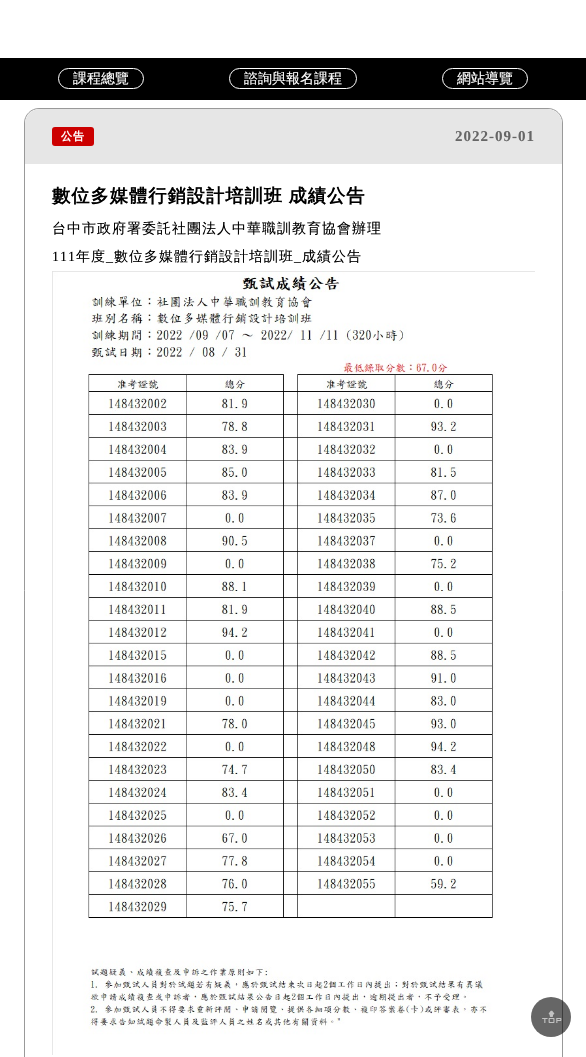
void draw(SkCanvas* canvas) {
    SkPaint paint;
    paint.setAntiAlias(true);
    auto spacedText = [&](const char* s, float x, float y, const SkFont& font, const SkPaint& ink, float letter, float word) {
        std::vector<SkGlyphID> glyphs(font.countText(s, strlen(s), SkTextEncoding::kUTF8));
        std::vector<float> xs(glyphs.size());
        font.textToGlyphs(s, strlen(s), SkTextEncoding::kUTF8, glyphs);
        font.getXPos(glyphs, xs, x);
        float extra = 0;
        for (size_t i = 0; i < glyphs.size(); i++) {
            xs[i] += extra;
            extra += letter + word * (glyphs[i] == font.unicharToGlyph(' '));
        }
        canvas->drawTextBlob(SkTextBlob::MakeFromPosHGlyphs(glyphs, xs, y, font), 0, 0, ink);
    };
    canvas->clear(0xFFFFFFFF);
    paint.setColor(0xFF000000);
    canvas->drawRect(SkRect::MakeXYWH(0, 58, 586, 42), paint);
    paint.setStyle(SkPaint::kStroke_Style);
    paint.setStrokeWidth(1);
    paint.setColor(0xFFFFFFFF);
    canvas->drawRoundRect(SkRect::MakeXYWH(58.5f, 68.5f, 85, 20), 10, 10, paint);
    SkFont font1(fontMgr->matchFamilyStyle("WenQuanYi Zen Hei", SkFontStyle(500, SkFontStyle::kNormal_Width, SkFontStyle::kUpright_Slant)), 14);
    font1.setSubpixel(true);
    paint.setStyle(SkPaint::kFill_Style);
    canvas->drawString("課程總覽", 73, 83, font1, paint);
    paint.setStyle(SkPaint::kStroke_Style);
    canvas->drawRoundRect(SkRect::MakeXYWH(229.5f, 68.5f, 127, 20), 10, 10, paint);
    paint.setStyle(SkPaint::kFill_Style);
    canvas->drawString("諮詢與報名課程", 244, 83, font1, paint);
    paint.setStyle(SkPaint::kStroke_Style);
    canvas->drawRoundRect(SkRect::MakeXYWH(442.5f, 68.5f, 85, 20), 10, 10, paint);
    paint.setStyle(SkPaint::kFill_Style);
    canvas->drawString("網站導覽", 457, 83, font1, paint);
    paint.setStyle(SkPaint::kStroke_Style);
    paint.setColor(0xFF999999);
    canvas->drawPath(SkPathBuilder().moveTo(39, 108.5f).lineTo(548, 108.5f).cubicTo(556, 108.5f, 562.5f, 115, 562.5f, 123).lineTo(562.5f, 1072.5f).lineTo(24.5f, 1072.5f).lineTo(24.5f, 123).cubicTo(24.5f, 115, 31, 108.5f, 39, 108.5f).close().detach(), paint);
    paint.setStyle(SkPaint::kFill_Style);
    paint.setColor(0xFFE6E6E6);
    canvas->drawPath(SkPathBuilder().moveTo(40, 109).lineTo(547, 109).cubicTo(555.5f, 109, 562, 115.5f, 562, 124).lineTo(562, 164).lineTo(25, 164).lineTo(25, 124).cubicTo(25, 115.5f, 31.5f, 109, 40, 109).close().detach(), paint);
    paint.setColor(0xFFCC0000);
    canvas->drawRoundRect(SkRect::MakeXYWH(52, 127, 42, 19), 3, 3, paint);
    SkFont font2(fontMgr->matchFamilyStyle("WenQuanYi Zen Hei", SkFontStyle::Bold()), 11);
    font2.setSubpixel(true);
    paint.setColor(0xFFFFFFFF);
    spacedText("公告", 61, 140, font2, paint, 1, 0);
    SkFont font3(fontMgr->matchFamilyStyle("Liberation Serif", SkFontStyle::Bold()), 15);
    font3.setSubpixel(true);
    paint.setColor(0xFF666666);
    spacedText("2022-09-01", 455, 141, font3, paint, 1, 0);
    SkFont font4(fontMgr->matchFamilyStyle("WenQuanYi Zen Hei", SkFontStyle::Bold()), 18.25f);
    font4.setSubpixel(true);
    paint.setColor(0xFF000000);
    spacedText("數位多媒體行銷設計培訓班 成績公告", 52, 202, font4, paint, 1, -1);
    spacedText("台中市政府署委託社團法人中華職訓教育協會辦理", 52, 233, font1, paint, 1, 0);
    SkFont font5(fontMgr->matchFamilyStyle("Liberation Serif", SkFontStyle::Normal()), 14);
    font5.setSubpixel(true);
    spacedText("111", 52, 261, font5, paint, 1, 0);
    spacedText("年度", 76, 261, font1, paint, 1, 0);
    spacedText("數位多媒體行銷設計培訓班", 114, 261, font1, paint, 1, 0);
    spacedText("成績公告", 302, 261, font1, paint, 1, 0);
    spacedText("_", 106, 261, font5, paint, 1, 0);
    spacedText("_", 294, 261, font5, paint, 1, 0);
    canvas->drawImageRect(SkImages::DeferredFromEncodedData(SkData::MakeFromFileName("img1.png")), SkRect::MakeXYWH(52, 271, 483, 784), SkSamplingOptions());
    paint.setColor(0x99000000);
    canvas->drawCircle(551, 1017, 20, paint);
    canvas->drawImageRect(SkImages::DeferredFromEncodedData(SkData::MakeFromFileName("img2.png")), SkRect::MakeXYWH(542, 1010, 20, 13), SkSamplingOptions());
}
